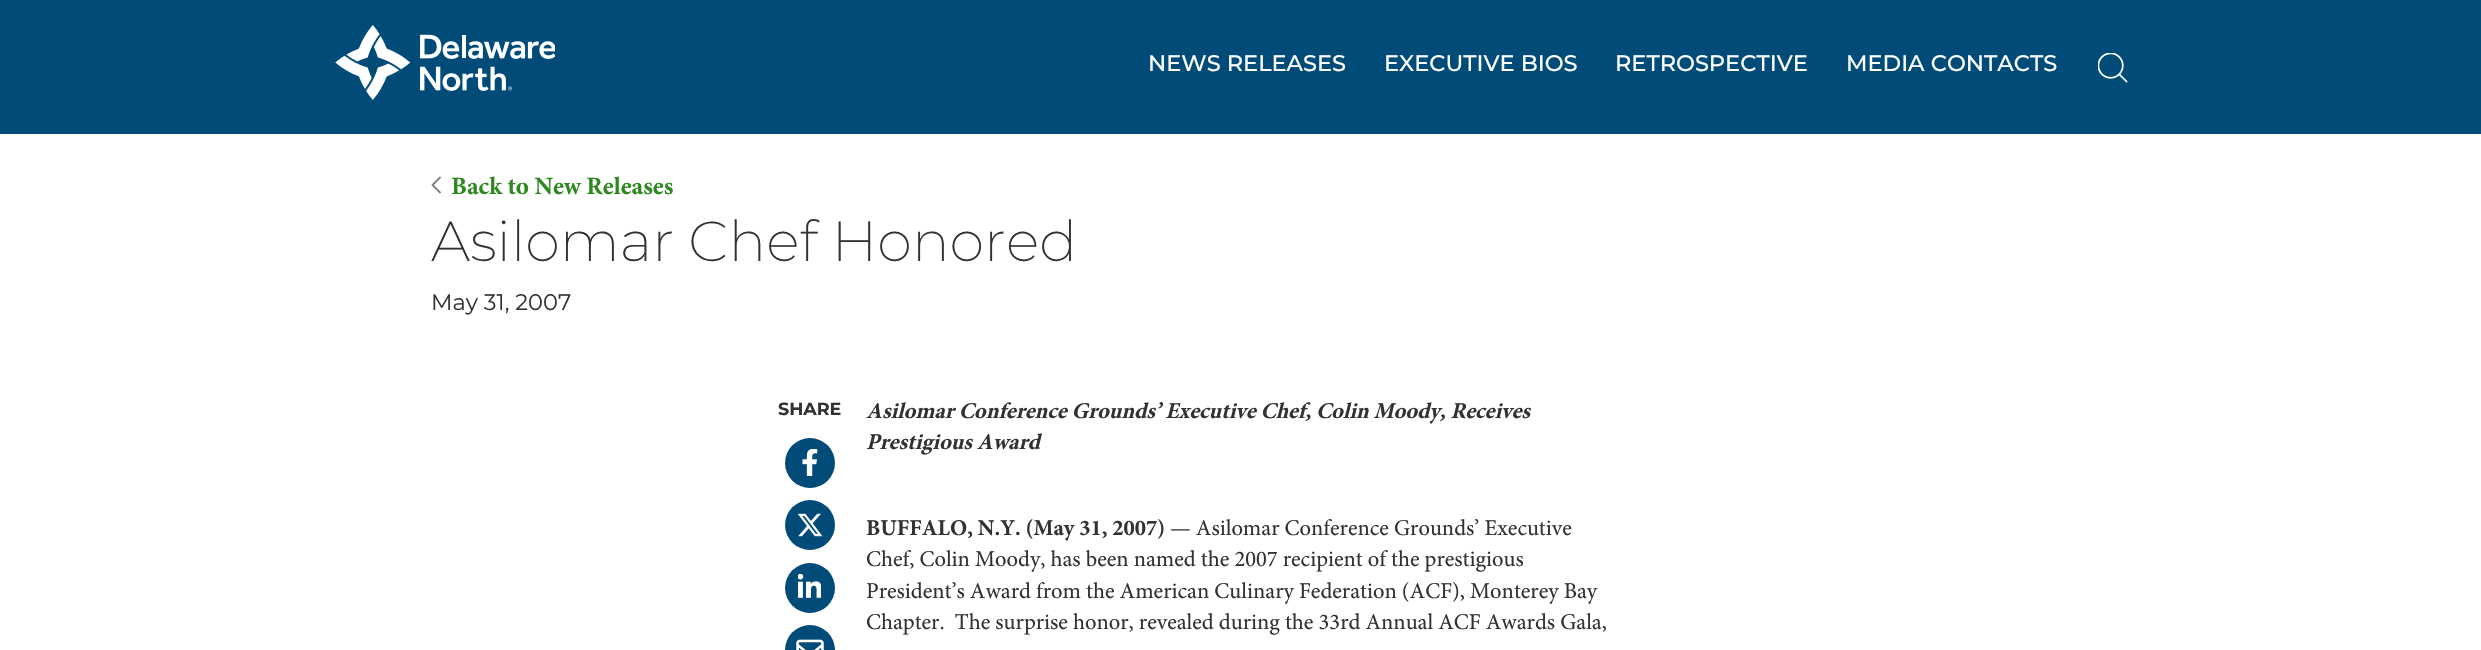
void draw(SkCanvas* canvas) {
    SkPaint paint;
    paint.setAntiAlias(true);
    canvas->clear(0xFFFFFFFF);
    paint.setColor(0xFF004B78);
    canvas->drawRect(SkRect::MakeXYWH(0, 0, 2481, 134), paint);
    canvas->drawImageRect(SkImages::DeferredFromEncodedData(SkData::MakeFromFileName("img1.png")), SkRect::MakeXYWH(335, 25, 220, 75), SkSamplingOptions());
    SkFont font1(fontMgr->matchFamilyStyle("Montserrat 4", SkFontStyle(100, SkFontStyle::kNormal_Width, SkFontStyle::kUpright_Slant)), 22.5f);
    font1.setSubpixel(true);
    paint.setColor(0xFFFFFFFF);
    canvas->drawString("NEWS RELEASES", 1148, 71, font1, paint);
    canvas->drawString("EXECUTIVE BIOS", 1384, 71, font1, paint);
    canvas->drawString("RETROSPECTIVE", 1615, 71, font1, paint);
    canvas->drawString("MEDIA CONTACTS", 1846, 71, font1, paint);
    canvas->drawImageRect(SkImages::DeferredFromEncodedData(SkData::MakeFromFileName("img2.png")), SkRect::MakeXYWH(2098, 53, 30, 30), SkSamplingOptions());
    canvas->drawImageRect(SkImages::DeferredFromEncodedData(SkData::MakeFromFileName("img3.png")), SkRect::MakeXYWH(431, 176, 10, 18), SkSamplingOptions());
    SkFont font2(fontMgr->matchFamilyStyle("Minion", SkFontStyle::Bold()), 25);
    font2.setSubpixel(true);
    paint.setColor(0xFF2D881F);
    canvas->drawString("Back to New Releases", 451, 194, font2, paint);
    SkFont font3(fontMgr->matchFamilyStyle("Montserrat", SkFontStyle(100, SkFontStyle::kNormal_Width, SkFontStyle::kUpright_Slant)), 56.25f);
    font3.setSubpixel(true);
    paint.setColor(0xFF323234);
    canvas->drawString("Asilomar Chef Honored", 431, 261, font3, paint);
    SkFont font4(fontMgr->matchFamilyStyle("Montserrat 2", SkFontStyle(100, SkFontStyle::kNormal_Width, SkFontStyle::kUpright_Slant)), 22.5f);
    font4.setSubpixel(true);
    canvas->drawString("May 31, 2007", 431, 310, font4, paint);
    SkFont font5(fontMgr->matchFamilyStyle("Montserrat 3", SkFontStyle(100, SkFontStyle::kNormal_Width, SkFontStyle::kUpright_Slant)), 17.5f);
    font5.setSubpixel(true);
    canvas->drawString("SHARE", 778, 415, font5, paint);
    paint.setColor(0xFF004B78);
    canvas->drawCircle(810, 463, 25, paint);
    canvas->drawImageRect(SkImages::DeferredFromEncodedData(SkData::MakeFromFileName("img4.png")), SkRect::MakeXYWH(802, 449, 16, 27), SkSamplingOptions());
    canvas->drawCircle(810, 525, 25, paint);
    canvas->drawImageRect(SkImages::DeferredFromEncodedData(SkData::MakeFromFileName("img5.png")), SkRect::MakeXYWH(797, 513, 26, 24), SkSamplingOptions());
    canvas->drawCircle(810, 588, 25, paint);
    canvas->drawImageRect(SkImages::DeferredFromEncodedData(SkData::MakeFromFileName("img6.png")), SkRect::MakeXYWH(798, 574, 23, 24), SkSamplingOptions());
    canvas->drawCircle(810, 650, 25, paint);
    canvas->drawImageRect(SkImages::DeferredFromEncodedData(SkData::MakeFromFileName("img7.png")), SkRect::MakeXYWH(796, 639, 28, 11), SkSamplingOptions());
    SkFont font6(fontMgr->matchFamilyStyle("Minion", SkFontStyle::BoldItalic()), 22.5f);
    font6.setSubpixel(true);
    paint.setColor(0xFF323234);
    canvas->drawString("Asilomar Conference Grounds’ Executive Chef, Colin Moody, Receives", 866, 418, font6, paint);
    canvas->drawString("Prestigious Award", 866, 449, font6, paint);
    SkFont font7(fontMgr->matchFamilyStyle("Minion", SkFontStyle::Bold()), 22.5f);
    font7.setSubpixel(true);
    canvas->drawString("BUFFALO, N.Y. (May 31, 2007)", 866, 535, font7, paint);
    SkFont font8(fontMgr->matchFamilyStyle("Minion", SkFontStyle::Normal()), 22.5f);
    font8.setSubpixel(true);
    canvas->drawString("— Asilomar Conference Grounds’ Executive", 1170, 535, font8, paint);
    canvas->drawString("Chef, Colin Moody, has been named the 2007 recipient of the prestigious", 866, 566, font8, paint);
    canvas->drawString("President’s Award from the American Culinary Federation (ACF), Monterey Bay", 866, 598, font8, paint);
    canvas->drawString("Chapter.  The surprise honor, revealed during the 33rd Annual ACF Awards Gala,", 866, 629, font8, paint);
}
